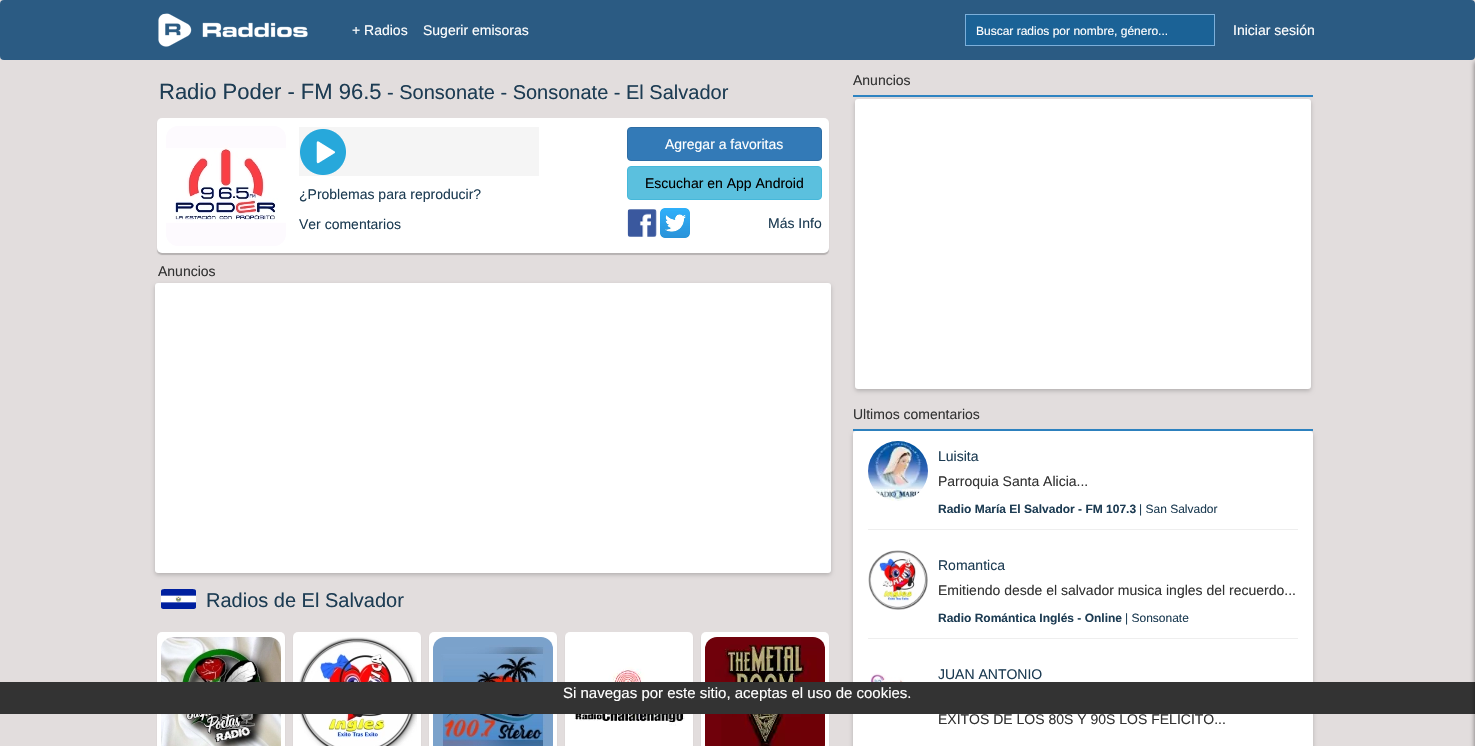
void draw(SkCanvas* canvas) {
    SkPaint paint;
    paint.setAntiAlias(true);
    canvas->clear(0xFFE2DDDD);
    paint.setColor(0xFF2B5B83);
    canvas->drawRoundRect(SkRect::MakeXYWH(0, 0, 1475, 60), 4, 4, paint);
    canvas->drawImageRect(SkImages::DeferredFromEncodedData(SkData::MakeFromFileName("img1.png")), SkRect::MakeXYWH(158, 13, 150, 34), SkSamplingOptions());
    SkFont font1(fontMgr->matchFamilyStyle("Liberation Sans", SkFontStyle::Normal()), 14);
    font1.setSubpixel(true);
    paint.setColor(0xFFFFFFFF);
    canvas->drawString("+ Radios", 352, 35, font1, paint);
    canvas->drawString("Sugerir emisoras", 423, 35, font1, paint);
    paint.setColor(0xFF1B6296);
    canvas->drawRect(SkRect::MakeXYWH(965.5f, 14.5f, 249, 31), paint);
    paint.setStyle(SkPaint::kStroke_Style);
    paint.setStrokeWidth(1);
    paint.setColor(0xFF7CAFDA);
    canvas->drawRect(SkRect::MakeXYWH(965.5f, 14.5f, 249, 31), paint);
    SkFont font2(fontMgr->matchFamilyStyle("Liberation Sans", SkFontStyle::Normal()), 12);
    font2.setSubpixel(true);
    paint.setStyle(SkPaint::kFill_Style);
    paint.setColor(0xFFFFFFFF);
    canvas->drawString("Buscar radios por nombre, género...", 976, 35, font2, paint);
    canvas->drawString("Iniciar sesión", 1233, 35, font1, paint);
    paint.setColor(0x33000000);
    paint.setMaskFilter(SkMaskFilter::MakeBlur(kNormal_SkBlurStyle, 0.5f));
    canvas->drawRoundRect(SkRect::MakeXYWH(157, 634, 128, 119), 5, 5, paint);
    paint.setMaskFilter(nullptr);
    paint.setColor(0xFFFFFFFF);
    canvas->drawRoundRect(SkRect::MakeXYWH(157, 632, 128, 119), 5, 5, paint);
    canvas->drawImageRect(SkImages::DeferredFromEncodedData(SkData::MakeFromFileName("img7.png")), SkRect::MakeXYWH(161, 637, 120, 109), SkSamplingOptions());
    paint.setColor(0x33000000);
    paint.setMaskFilter(SkMaskFilter::MakeBlur(kNormal_SkBlurStyle, 0.5f));
    canvas->drawRoundRect(SkRect::MakeXYWH(293, 634, 128, 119), 5, 5, paint);
    paint.setMaskFilter(nullptr);
    paint.setColor(0xFFFFFFFF);
    canvas->drawRoundRect(SkRect::MakeXYWH(293, 632, 128, 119), 5, 5, paint);
    canvas->drawImageRect(SkImages::DeferredFromEncodedData(SkData::MakeFromFileName("img8.png")), SkRect::MakeXYWH(297, 637, 120, 109), SkSamplingOptions());
    paint.setColor(0x33000000);
    paint.setMaskFilter(SkMaskFilter::MakeBlur(kNormal_SkBlurStyle, 0.5f));
    canvas->drawRoundRect(SkRect::MakeXYWH(429, 634, 128, 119), 5, 5, paint);
    paint.setMaskFilter(nullptr);
    paint.setColor(0xFFFFFFFF);
    canvas->drawRoundRect(SkRect::MakeXYWH(429, 632, 128, 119), 5, 5, paint);
    canvas->drawImageRect(SkImages::DeferredFromEncodedData(SkData::MakeFromFileName("img9.png")), SkRect::MakeXYWH(433, 637, 120, 109), SkSamplingOptions());
    paint.setColor(0x33000000);
    paint.setMaskFilter(SkMaskFilter::MakeBlur(kNormal_SkBlurStyle, 0.5f));
    canvas->drawRoundRect(SkRect::MakeXYWH(565, 634, 128, 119), 5, 5, paint);
    paint.setMaskFilter(nullptr);
    paint.setColor(0xFFFFFFFF);
    canvas->drawRoundRect(SkRect::MakeXYWH(565, 632, 128, 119), 5, 5, paint);
    canvas->drawImageRect(SkImages::DeferredFromEncodedData(SkData::MakeFromFileName("img10.png")), SkRect::MakeXYWH(574, 667, 111, 59), SkSamplingOptions());
    paint.setColor(0x33000000);
    paint.setMaskFilter(SkMaskFilter::MakeBlur(kNormal_SkBlurStyle, 0.5f));
    canvas->drawRoundRect(SkRect::MakeXYWH(701, 634, 128, 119), 5, 5, paint);
    paint.setMaskFilter(nullptr);
    paint.setColor(0xFFFFFFFF);
    canvas->drawRoundRect(SkRect::MakeXYWH(701, 632, 128, 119), 5, 5, paint);
    canvas->drawImageRect(SkImages::DeferredFromEncodedData(SkData::MakeFromFileName("img11.png")), SkRect::MakeXYWH(705, 637, 120, 109), SkSamplingOptions());
    paint.setColor(0xFF2E84C2);
    canvas->drawRect(SkRect::MakeXYWH(853, 429, 460, 2), paint);
    paint.setColor(0x33000000);
    paint.setMaskFilter(SkMaskFilter::MakeBlur(kNormal_SkBlurStyle, 2));
    canvas->drawRoundRect(SkRect::MakeXYWH(853, 433, 460, 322), 3, 3, paint);
    paint.setMaskFilter(nullptr);
    paint.setColor(0xFFFFFFFF);
    canvas->drawRoundRect(SkRect::MakeXYWH(853, 431, 460, 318), 3, 3, paint);
    paint.setColor(0xFF333333);
    canvas->drawRect(SkRect::MakeXYWH(0, 682, 1475, 32), paint);
    paint.setColor(0x80000000);
    paint.setMaskFilter(SkMaskFilter::MakeBlur(kNormal_SkBlurStyle, 2.5f));
    canvas->drawRect(SkRect::MakeXYWH(1475, 62, 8, 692), paint);
    paint.setMaskFilter(nullptr);
    SkFont font3(fontMgr->matchFamilyStyle("Liberation Sans", SkFontStyle::Normal()), 22);
    font3.setSubpixel(true);
    paint.setColor(0xFF1D3C53);
    canvas->drawString("Radio Poder - FM 96.5", 159, 99, font3, paint);
    SkFont font4(fontMgr->matchFamilyStyle("Liberation Sans", SkFontStyle::Normal()), 20);
    font4.setSubpixel(true);
    canvas->drawString("- Sonsonate - Sonsonate - El Salvador", 387, 99, font4, paint);
    paint.setColor(0x33000000);
    paint.setMaskFilter(SkMaskFilter::MakeBlur(kNormal_SkBlurStyle, 0.5f));
    canvas->drawRoundRect(SkRect::MakeXYWH(157, 120, 672, 135), 5, 5, paint);
    paint.setMaskFilter(nullptr);
    paint.setColor(0xFFFFFFFF);
    canvas->drawRoundRect(SkRect::MakeXYWH(157, 118, 672, 135), 5, 5, paint);
    canvas->drawImageRect(SkImages::DeferredFromEncodedData(SkData::MakeFromFileName("img2.png")), SkRect::MakeXYWH(166, 126, 120, 120), SkSamplingOptions());
    canvas->drawImageRect(SkImages::DeferredFromEncodedData(SkData::MakeFromFileName("img3.png")), SkRect::MakeXYWH(299, 127, 240, 49), SkSamplingOptions());
    paint.setColor(0xFF1D3C53);
    canvas->drawString("¿Problemas para reproducir?", 299, 199, font1, paint);
    canvas->drawString("Ver comentarios", 299, 229, font1, paint);
    paint.setColor(0xFF337AB7);
    canvas->drawRoundRect(SkRect::MakeXYWH(627.5f, 127.5f, 194, 33), 3.5f, 3.5f, paint);
    paint.setStyle(SkPaint::kStroke_Style);
    paint.setColor(0xFF2E6DA4);
    canvas->drawRoundRect(SkRect::MakeXYWH(627.5f, 127.5f, 194, 33), 3.5f, 3.5f, paint);
    paint.setStyle(SkPaint::kFill_Style);
    paint.setColor(0xFFFFFFFF);
    canvas->drawString("Agregar a favoritas", 665, 149, font1, paint);
    paint.setColor(0xFF5BC0DE);
    canvas->drawRoundRect(SkRect::MakeXYWH(627.5f, 166.5f, 194, 33), 3.5f, 3.5f, paint);
    paint.setStyle(SkPaint::kStroke_Style);
    paint.setColor(0xFF46B8DA);
    canvas->drawRoundRect(SkRect::MakeXYWH(627.5f, 166.5f, 194, 33), 3.5f, 3.5f, paint);
    paint.setStyle(SkPaint::kFill_Style);
    paint.setColor(0xFF000000);
    canvas->drawString("Escuchar en App Android", 645, 188, font1, paint);
    canvas->drawImageRect(SkImages::DeferredFromEncodedData(SkData::MakeFromFileName("img4.png")), SkRect::MakeXYWH(627, 209, 30, 28), SkSamplingOptions());
    canvas->drawImageRect(SkImages::DeferredFromEncodedData(SkData::MakeFromFileName("img5.png")), SkRect::MakeXYWH(660, 208, 30, 30), SkSamplingOptions());
    paint.setColor(0xFF1D3C53);
    canvas->drawString("Más Info", 768, 228, font1, paint);
    paint.setColor(0xFF333333);
    canvas->drawString("Anuncios", 158, 276, font1, paint);
    paint.setColor(0x33000000);
    paint.setMaskFilter(SkMaskFilter::MakeBlur(kNormal_SkBlurStyle, 2));
    canvas->drawRoundRect(SkRect::MakeXYWH(155, 285, 676, 290), 3, 3, paint);
    paint.setMaskFilter(nullptr);
    paint.setColor(0xFFFFFFFF);
    canvas->drawRoundRect(SkRect::MakeXYWH(155, 283, 676, 290), 3, 3, paint);
    canvas->drawImageRect(SkImages::DeferredFromEncodedData(SkData::MakeFromFileName("img6.png")), SkRect::MakeXYWH(161, 589, 35, 20), SkSamplingOptions());
    paint.setColor(0xFF1D3C53);
    canvas->drawString("Radios de El Salvador", 206, 607, font4, paint);
    paint.setColor(0xFF2E84C2);
    canvas->drawRect(SkRect::MakeXYWH(853, 95, 460, 2), paint);
    paint.setColor(0xFF333333);
    canvas->drawString("Anuncios", 853, 85, font1, paint);
    paint.setColor(0x33000000);
    paint.setMaskFilter(SkMaskFilter::MakeBlur(kNormal_SkBlurStyle, 2));
    canvas->drawRoundRect(SkRect::MakeXYWH(855, 101, 456, 290), 3, 3, paint);
    paint.setMaskFilter(nullptr);
    paint.setColor(0xFFFFFFFF);
    canvas->drawRoundRect(SkRect::MakeXYWH(855, 99, 456, 290), 3, 3, paint);
    paint.setColor(0xFF333333);
    canvas->drawString("Ultimos comentarios", 853, 419, font1, paint);
    canvas->drawImageRect(SkImages::DeferredFromEncodedData(SkData::MakeFromFileName("img12.png")), SkRect::MakeXYWH(868, 441, 60, 60), SkSamplingOptions());
    paint.setColor(0xFF1D3C53);
    canvas->drawString("Luisita", 938, 461, font1, paint);
    paint.setColor(0xFF333333);
    canvas->drawString("Parroquia Santa Alicia...", 938, 486, font1, paint);
    SkFont font5(fontMgr->matchFamilyStyle("Liberation Sans", SkFontStyle::Bold()), 12);
    font5.setSubpixel(true);
    paint.setColor(0xFF1D3C53);
    canvas->drawString("Radio María El Salvador - FM 107.3", 938, 513, font5, paint);
    canvas->drawString("| San Salvador", 1139, 513, font2, paint);
    paint.setColor(0xFFEEEEEE);
    canvas->drawPath(SkPathBuilder().moveTo(911, 529).lineTo(1255, 529).lineTo(1298, 529).lineTo(1298, 530).lineTo(868, 530).lineTo(868, 529).close().detach(), paint);
    canvas->drawImageRect(SkImages::DeferredFromEncodedData(SkData::MakeFromFileName("img13.png")), SkRect::MakeXYWH(868, 550, 60, 60), SkSamplingOptions());
    paint.setColor(0xFF1D3C53);
    canvas->drawString("Romantica", 938, 570, font1, paint);
    paint.setColor(0xFF333333);
    canvas->drawString("Emitiendo desde el salvador musica ingles del recuerdo...", 938, 595, font1, paint);
    paint.setColor(0xFF1D3C53);
    canvas->drawString("Radio Romántica Inglés - Online", 938, 622, font5, paint);
    canvas->drawString("| Sonsonate", 1125, 622, font2, paint);
    paint.setColor(0xFFEEEEEE);
    canvas->drawPath(SkPathBuilder().moveTo(911, 638).lineTo(1255, 638).lineTo(1298, 638).lineTo(1298, 639).lineTo(868, 639).lineTo(868, 638).close().detach(), paint);
    canvas->drawImageRect(SkImages::DeferredFromEncodedData(SkData::MakeFromFileName("img14.png")), SkRect::MakeXYWH(870, 673, 56, 9), SkSamplingOptions());
    paint.setColor(0xFF1D3C53);
    canvas->drawString("JUAN ANTONIO", 938, 679, font1, paint);
    paint.setColor(0xFF333333);
    canvas->drawString("EXITOS DE LOS 80S Y 90S LOS FELICITO...", 938, 724, font1, paint);
    SkFont font6(fontMgr->matchFamilyStyle("Liberation Sans", SkFontStyle::Normal()), 15);
    font6.setSubpixel(true);
    paint.setColor(0xFFFFFFFF);
    canvas->drawString("Si navegas por este sitio, aceptas el uso de cookies.", 563, 698, font6, paint);
}
